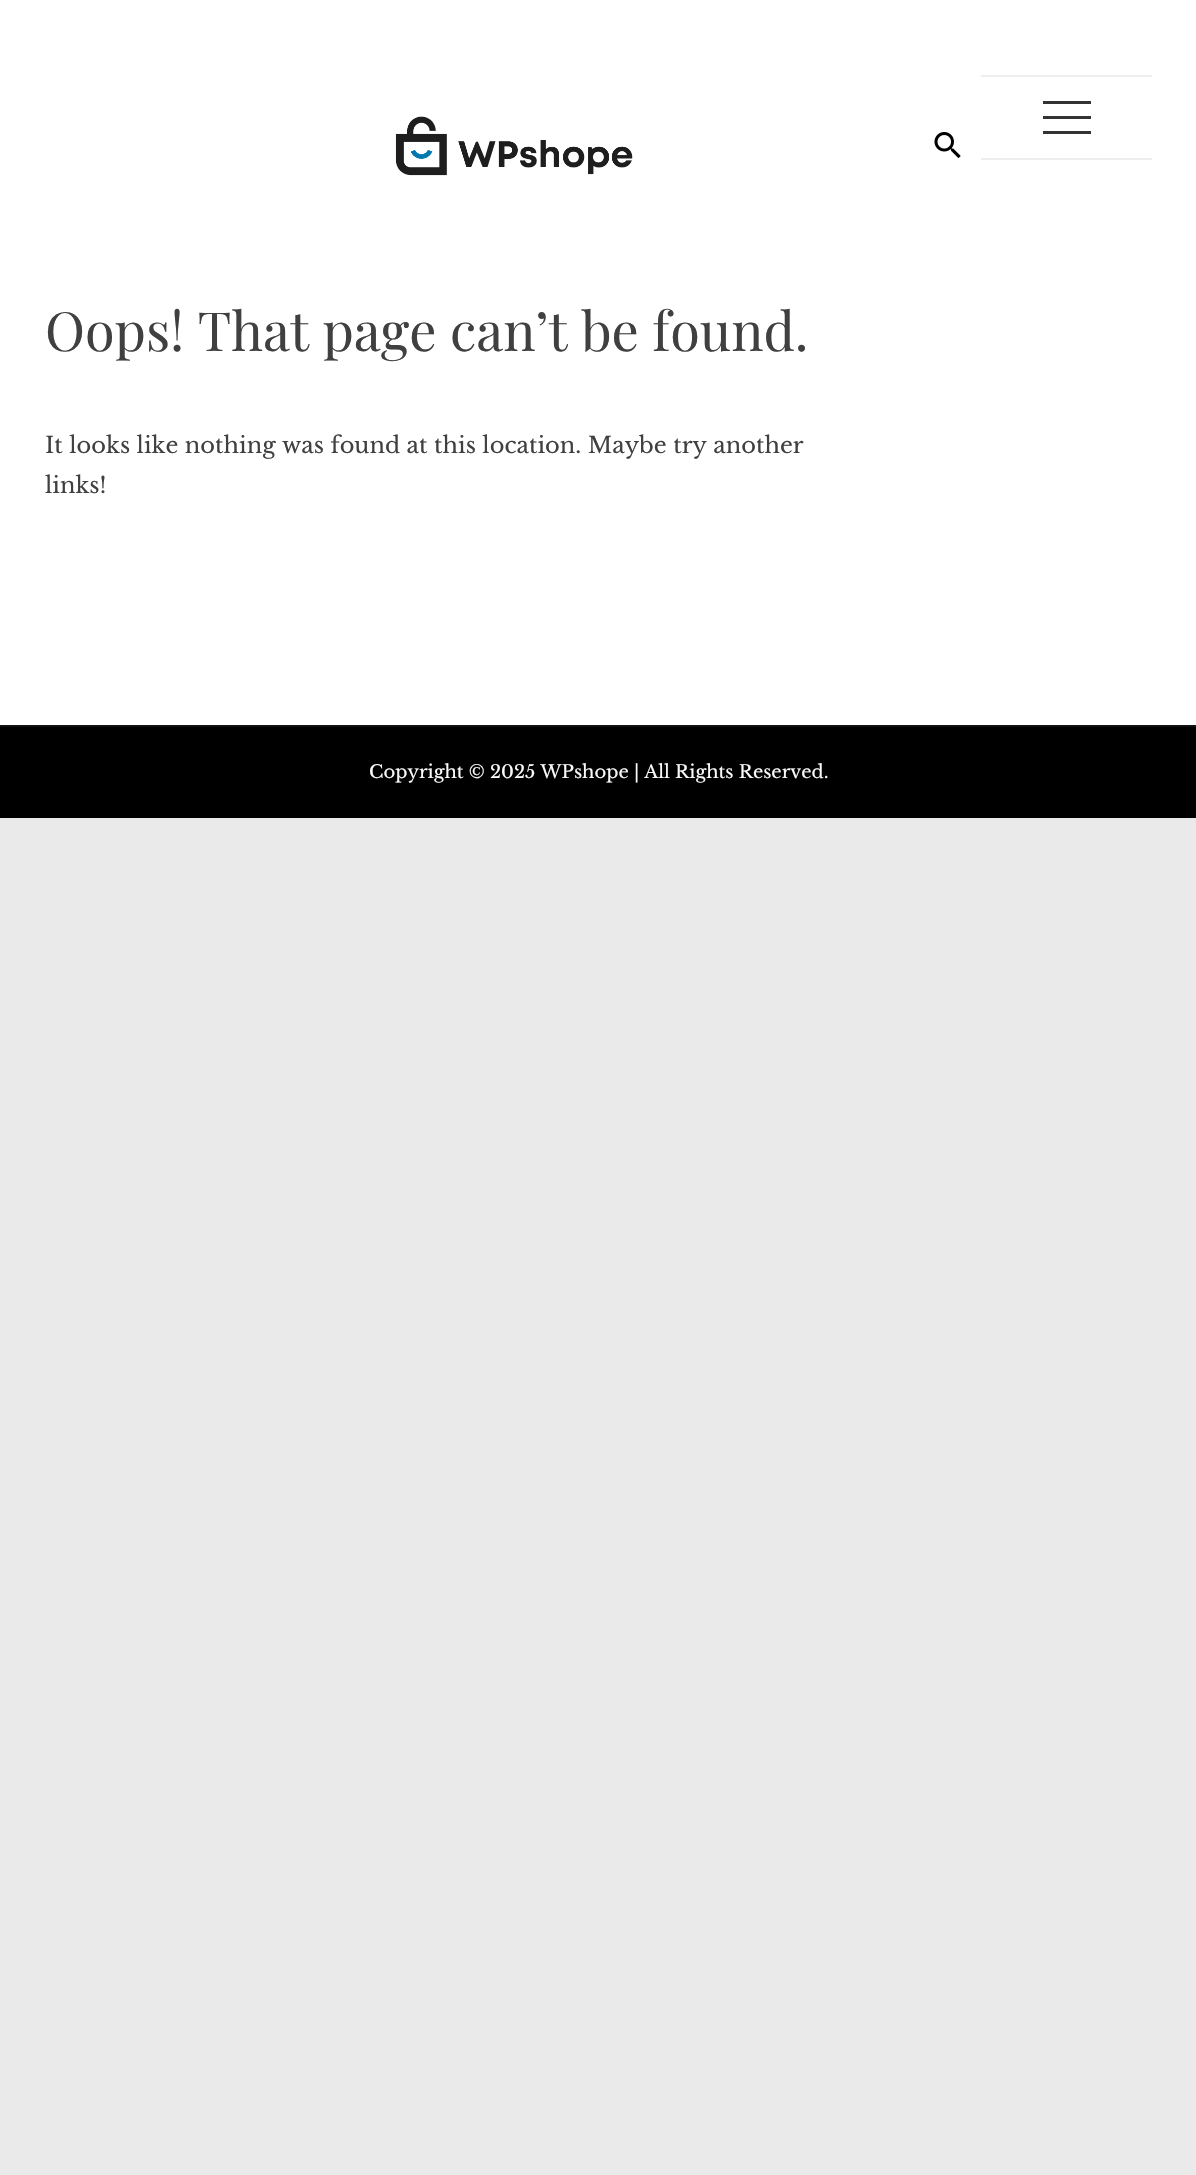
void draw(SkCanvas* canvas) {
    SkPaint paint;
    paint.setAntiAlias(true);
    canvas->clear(0xFFEAEAEA);
    paint.setColor(0xFFFFFFFF);
    canvas->drawRect(SkRect::MakeXYWH(0, 0, 1196, 725), paint);
    canvas->drawImageRect(SkImages::DeferredFromEncodedData(SkData::MakeFromFileName("img1.png")), SkRect::MakeXYWH(395, 116, 238, 60), SkSamplingOptions());
    canvas->drawImageRect(SkImages::DeferredFromEncodedData(SkData::MakeFromFileName("img2.png")), SkRect::MakeXYWH(934, 132, 27, 27), SkSamplingOptions());
    paint.setColor(0xFFEEEEEE);
    canvas->drawRect(SkRect::MakeXYWH(981, 75, 171, 2), paint);
    canvas->drawRect(SkRect::MakeXYWH(981, 158, 171, 2), paint);
    paint.setColor(0xFF333333);
    canvas->drawRect(SkRect::MakeXYWH(1043, 101, 48, 3), paint);
    canvas->drawRect(SkRect::MakeXYWH(1043, 131, 48, 3), paint);
    canvas->drawRect(SkRect::MakeXYWH(1043, 116, 48, 3), paint);
    SkFont font1(fontMgr->matchFamilyStyle("Playfair Display", SkFontStyle::Normal()), 54);
    font1.setSubpixel(true);
    paint.setColor(0xFF404040);
    canvas->drawString("Oops! That page can’t be found.", 45, 351, font1, paint);
    SkFont font2(fontMgr->matchFamilyStyle("Libre Baskerville", SkFontStyle::Normal()), 22.5f);
    font2.setSubpixel(true);
    canvas->drawString("It looks like nothing was found at this location. Maybe try another", 45, 453, font2, paint);
    canvas->drawString("links!", 45, 493, font2, paint);
    paint.setColor(0xFF000000);
    canvas->drawRect(SkRect::MakeXYWH(0, 727, 1196, 91), paint);
    paint.setColor(0xFF111111);
    canvas->drawRect(SkRect::MakeXYWH(0, 725, 1196, 2), paint);
    SkFont font3(fontMgr->matchFamilyStyle("Libre Baskerville", SkFontStyle::Normal()), 18);
    font3.setSubpixel(true);
    paint.setColor(0xFFFAFAFA);
    canvas->drawString("Copyright © 2025 WPshope | All Rights Reserved.", 369, 778, font3, paint);
}
